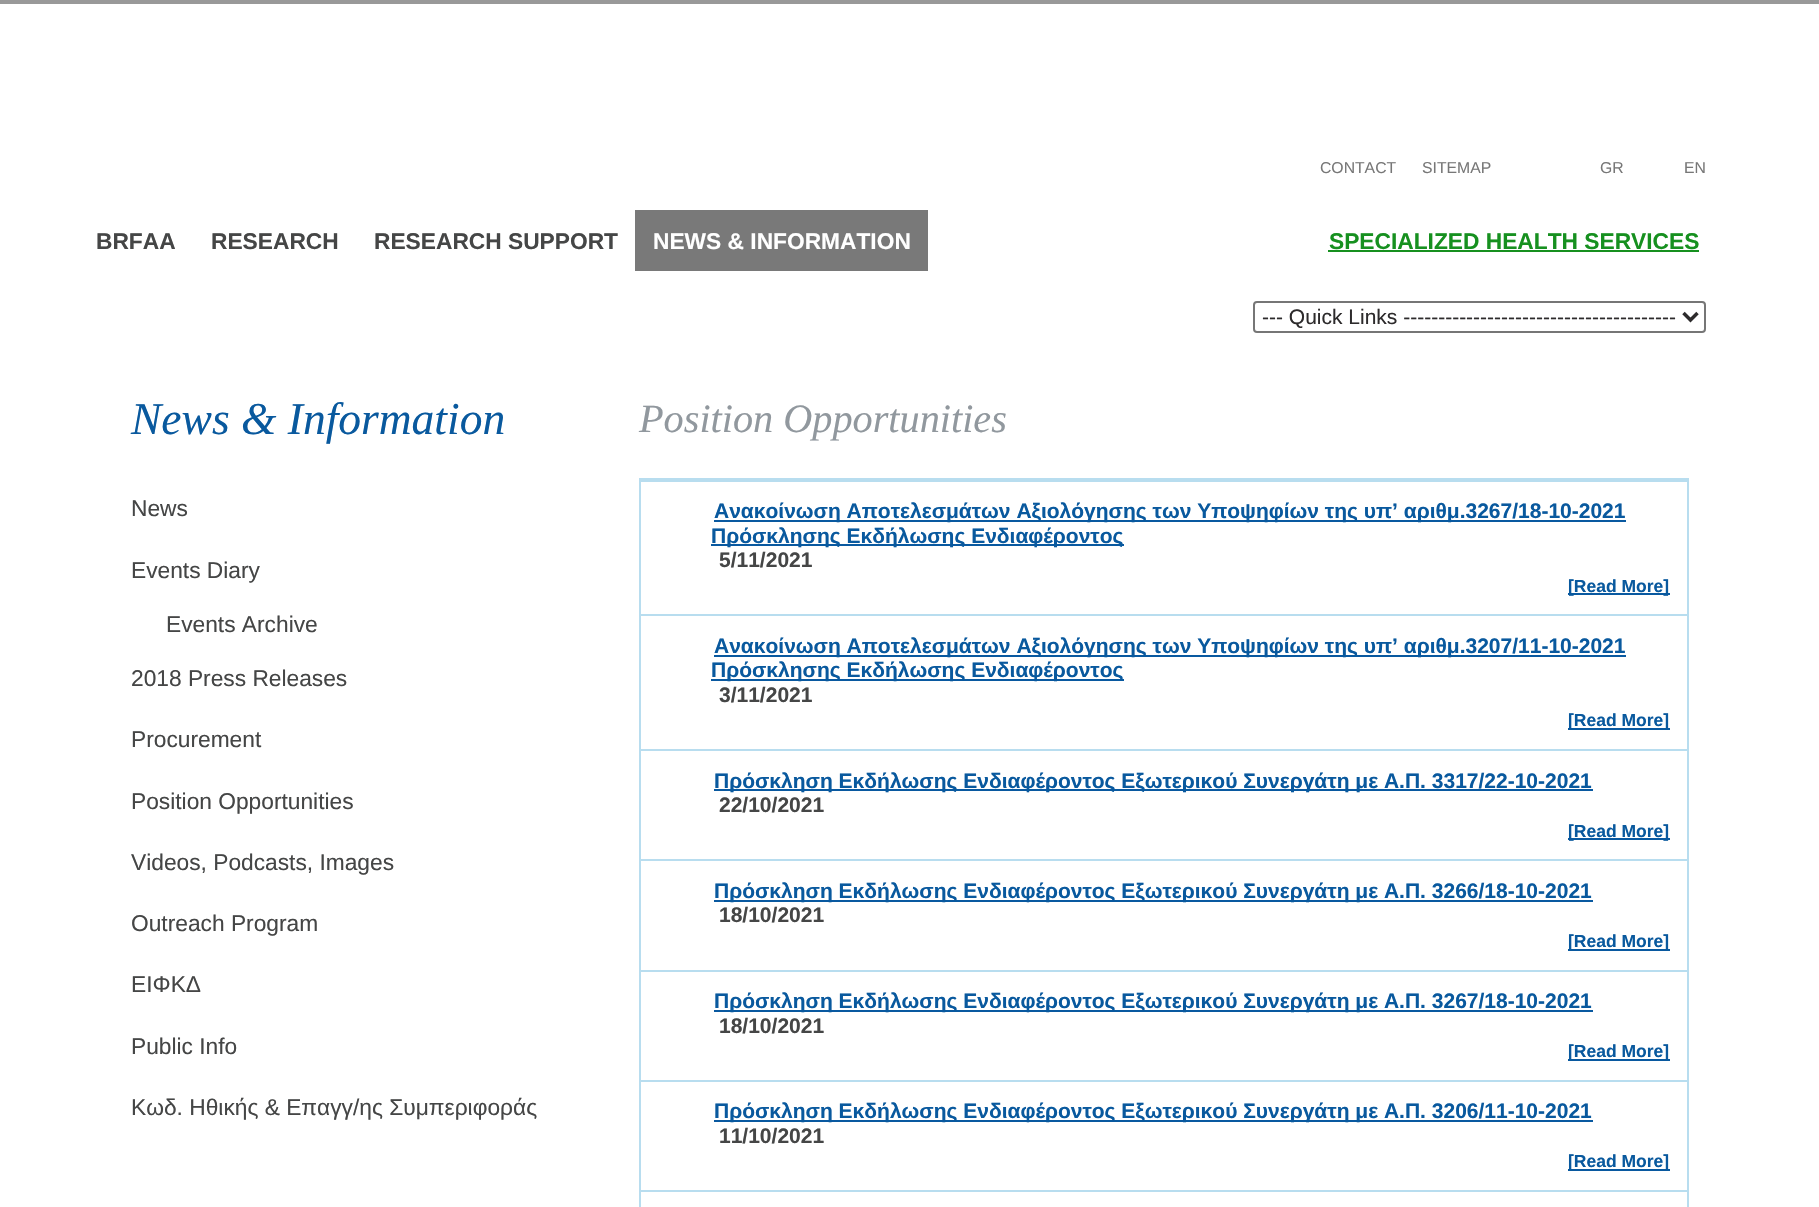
void draw(SkCanvas* canvas) {
    SkPaint paint;
    paint.setAntiAlias(true);
    canvas->clear(0xFFFFFFFF);
    paint.setColor(0xFF999999);
    canvas->drawRect(SkRect::MakeXYWH(0, 0, 1819, 4), paint);
    SkFont font1(fontMgr->matchFamilyStyle("Liberation Sans", SkFontStyle::Normal()), 15.75f);
    font1.setSubpixel(true);
    paint.setColor(0xFF777777);
    canvas->drawString("CONTACT", 1320, 173, font1, paint);
    canvas->drawString("SITEMAP", 1422, 173, font1, paint);
    canvas->drawString("GR", 1600, 173, font1, paint);
    canvas->drawString("EN", 1684, 173, font1, paint);
    SkFont font2(fontMgr->matchFamilyStyle("Liberation Sans", SkFontStyle::Bold()), 22.75f);
    font2.setSubpixel(true);
    paint.setColor(0xFF454646);
    canvas->drawString("BRFAA", 96, 249, font2, paint);
    canvas->drawString("RESEARCH", 211, 249, font2, paint);
    canvas->drawString("RESEARCH SUPPORT", 374, 249, font2, paint);
    paint.setColor(0xFF797979);
    canvas->drawRect(SkRect::MakeXYWH(635, 210, 293, 61), paint);
    paint.setColor(0xFFFFFFFF);
    canvas->drawString("NEWS & INFORMATION", 653, 249, font2, paint);
    paint.setColor(0xFF16901F);
    canvas->drawString("SPECIALIZED HEALTH SERVICES", 1329, 249, font2, paint);
    canvas->drawRect(SkRect::MakeXYWH(1328, 250, 371, 2), paint);
    paint.setStyle(SkPaint::kStroke_Style);
    paint.setStrokeWidth(2);
    paint.setColor(0xFF767676);
    canvas->drawRoundRect(SkRect::MakeXYWH(1254, 302, 451, 30), 3, 3, paint);
    paint.setStrokeWidth(3.5f);
    paint.setColor(0xFF2D2B2C);
    canvas->drawPath(SkPathBuilder().moveTo(1683.5f, 313).lineTo(1690.5f, 320).lineTo(1697.5f, 313).detach(), paint);
    SkFont font3(fontMgr->matchFamilyStyle("Liberation Sans", SkFontStyle::Normal()), 21);
    font3.setSubpixel(true);
    paint.setStyle(SkPaint::kFill_Style);
    canvas->drawString("--- Quick Links ---------------------------------------", 1262, 324, font3, paint);
    SkFont font4(fontMgr->matchFamilyStyle("Liberation Serif", SkFontStyle::Italic()), 45.5f);
    font4.setSubpixel(true);
    paint.setColor(0xFF09599E);
    canvas->drawString("News & Information", 131, 434, font4, paint);
    SkFont font5(fontMgr->matchFamilyStyle("Liberation Sans", SkFontStyle::Normal()), 22.75f);
    font5.setSubpixel(true);
    paint.setColor(0xFF454646);
    canvas->drawString("News", 131, 516, font5, paint);
    canvas->drawString("Events Diary", 131, 578, font5, paint);
    canvas->drawString("Events Archive", 166, 632, font5, paint);
    canvas->drawString("2018 Press Releases", 131, 686, font5, paint);
    canvas->drawString("Procurement", 131, 747, font5, paint);
    canvas->drawString("Position Opportunities", 131, 809, font5, paint);
    canvas->drawString("Videos, Podcasts, Images", 131, 870, font5, paint);
    canvas->drawString("Outreach Program", 131, 931, font5, paint);
    canvas->drawString("ΕΙΦΚΔ", 131, 992, font5, paint);
    canvas->drawString("Public Info", 131, 1054, font5, paint);
    canvas->drawString("Κωδ. Ηθικής & Επαγγ/ης Συμπεριφοράς", 131, 1115, font5, paint);
    SkFont font6(fontMgr->matchFamilyStyle("Liberation Serif", SkFontStyle::Italic()), 40.25f);
    font6.setSubpixel(true);
    paint.setColor(0xFF91989E);
    canvas->drawString("Position Opportunities", 639, 432, font6, paint);
    paint.setStyle(SkPaint::kStroke_Style);
    paint.setStrokeWidth(2);
    paint.setColor(0xFFB8DDEF);
    canvas->drawRect(SkRect::MakeXYWH(640, 479, 1048, 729), paint);
    paint.setStyle(SkPaint::kFill_Style);
    canvas->drawRect(SkRect::MakeXYWH(641, 480, 1046, 2), paint);
    paint.setColor(0xFF0959A0);
    canvas->drawRect(SkRect::MakeXYWH(714, 520, 912, 2), paint);
    SkFont font7(fontMgr->matchFamilyStyle("Liberation Sans", SkFontStyle::Bold()), 21);
    font7.setSubpixel(true);
    paint.setColor(0xFF09599E);
    canvas->drawString("Ανακοίνωση Αποτελεσμάτων Αξιολόγησης των Υποψηφίων της υπ’ αριθμ.3267/18-10-2021", 714, 518, font7, paint);
    paint.setColor(0xFF0959A0);
    canvas->drawRect(SkRect::MakeXYWH(711, 544, 413, 2), paint);
    paint.setColor(0xFF09599E);
    canvas->drawString("Πρόσκλησης Εκδήλωσης Ενδιαφέροντος", 711, 543, font7, paint);
    paint.setColor(0xFF454646);
    canvas->drawString("5/11/2021", 719, 567, font7, paint);
    paint.setColor(0xFF0959A0);
    canvas->drawRect(SkRect::MakeXYWH(1568, 593, 102, 2), paint);
    SkFont font8(fontMgr->matchFamilyStyle("Liberation Sans", SkFontStyle::Bold()), 17.5f);
    font8.setSubpixel(true);
    paint.setColor(0xFF09599E);
    canvas->drawString("[Read More]", 1568, 592, font8, paint);
    paint.setColor(0xFFB8DDEF);
    canvas->drawRect(SkRect::MakeXYWH(641, 614, 1046, 2), paint);
    paint.setColor(0xFF0959A0);
    canvas->drawRect(SkRect::MakeXYWH(714, 655, 912, 2), paint);
    paint.setColor(0xFF09599E);
    canvas->drawString("Ανακοίνωση Αποτελεσμάτων Αξιολόγησης των Υποψηφίων της υπ’ αριθμ.3207/11-10-2021", 714, 653, font7, paint);
    paint.setColor(0xFF0959A0);
    canvas->drawRect(SkRect::MakeXYWH(711, 679, 413, 2), paint);
    paint.setColor(0xFF09599E);
    canvas->drawString("Πρόσκλησης Εκδήλωσης Ενδιαφέροντος", 711, 677, font7, paint);
    paint.setColor(0xFF454646);
    canvas->drawString("3/11/2021", 719, 702, font7, paint);
    paint.setColor(0xFF0959A0);
    canvas->drawRect(SkRect::MakeXYWH(1568, 728, 102, 2), paint);
    paint.setColor(0xFF09599E);
    canvas->drawString("[Read More]", 1568, 726, font8, paint);
    paint.setColor(0xFFB8DDEF);
    canvas->drawRect(SkRect::MakeXYWH(641, 749, 1046, 2), paint);
    paint.setColor(0xFF0959A0);
    canvas->drawRect(SkRect::MakeXYWH(714, 789, 879, 2), paint);
    paint.setColor(0xFF09599E);
    canvas->drawString("Πρόσκληση Εκδήλωσης Ενδιαφέροντος Εξωτερικού Συνεργάτη με Α.Π. 3317/22-10-2021", 714, 788, font7, paint);
    paint.setColor(0xFF454646);
    canvas->drawString("22/10/2021", 719, 812, font7, paint);
    paint.setColor(0xFF0959A0);
    canvas->drawRect(SkRect::MakeXYWH(1568, 838, 102, 2), paint);
    paint.setColor(0xFF09599E);
    canvas->drawString("[Read More]", 1568, 837, font8, paint);
    paint.setColor(0xFFB8DDEF);
    canvas->drawRect(SkRect::MakeXYWH(641, 859, 1046, 2), paint);
    paint.setColor(0xFF0959A0);
    canvas->drawRect(SkRect::MakeXYWH(714, 900, 879, 2), paint);
    paint.setColor(0xFF09599E);
    canvas->drawString("Πρόσκληση Εκδήλωσης Ενδιαφέροντος Εξωτερικού Συνεργάτη με Α.Π. 3266/18-10-2021", 714, 898, font7, paint);
    paint.setColor(0xFF454646);
    canvas->drawString("18/10/2021", 719, 922, font7, paint);
    paint.setColor(0xFF0959A0);
    canvas->drawRect(SkRect::MakeXYWH(1568, 949, 102, 2), paint);
    paint.setColor(0xFF09599E);
    canvas->drawString("[Read More]", 1568, 947, font8, paint);
    paint.setColor(0xFFB8DDEF);
    canvas->drawRect(SkRect::MakeXYWH(641, 970, 1046, 2), paint);
    paint.setColor(0xFF0959A0);
    canvas->drawRect(SkRect::MakeXYWH(714, 1010, 879, 2), paint);
    paint.setColor(0xFF09599E);
    canvas->drawString("Πρόσκληση Εκδήλωσης Ενδιαφέροντος Εξωτερικού Συνεργάτη με Α.Π. 3267/18-10-2021", 714, 1008, font7, paint);
    paint.setColor(0xFF454646);
    canvas->drawString("18/10/2021", 719, 1033, font7, paint);
    paint.setColor(0xFF0959A0);
    canvas->drawRect(SkRect::MakeXYWH(1568, 1059, 102, 2), paint);
    paint.setColor(0xFF09599E);
    canvas->drawString("[Read More]", 1568, 1057, font8, paint);
    paint.setColor(0xFFB8DDEF);
    canvas->drawRect(SkRect::MakeXYWH(641, 1080, 1046, 2), paint);
    paint.setColor(0xFF0959A0);
    canvas->drawRect(SkRect::MakeXYWH(714, 1120, 879, 2), paint);
    paint.setColor(0xFF09599E);
    canvas->drawString("Πρόσκληση Εκδήλωσης Ενδιαφέροντος Εξωτερικού Συνεργάτη με Α.Π. 3206/11-10-2021", 714, 1118, font7, paint);
    paint.setColor(0xFF454646);
    canvas->drawString("11/10/2021", 719, 1143, font7, paint);
    paint.setColor(0xFF0959A0);
    canvas->drawRect(SkRect::MakeXYWH(1568, 1169, 102, 2), paint);
    paint.setColor(0xFF09599E);
    canvas->drawString("[Read More]", 1568, 1167, font8, paint);
    paint.setColor(0xFFB8DDEF);
    canvas->drawRect(SkRect::MakeXYWH(641, 1190, 1046, 2), paint);
}
